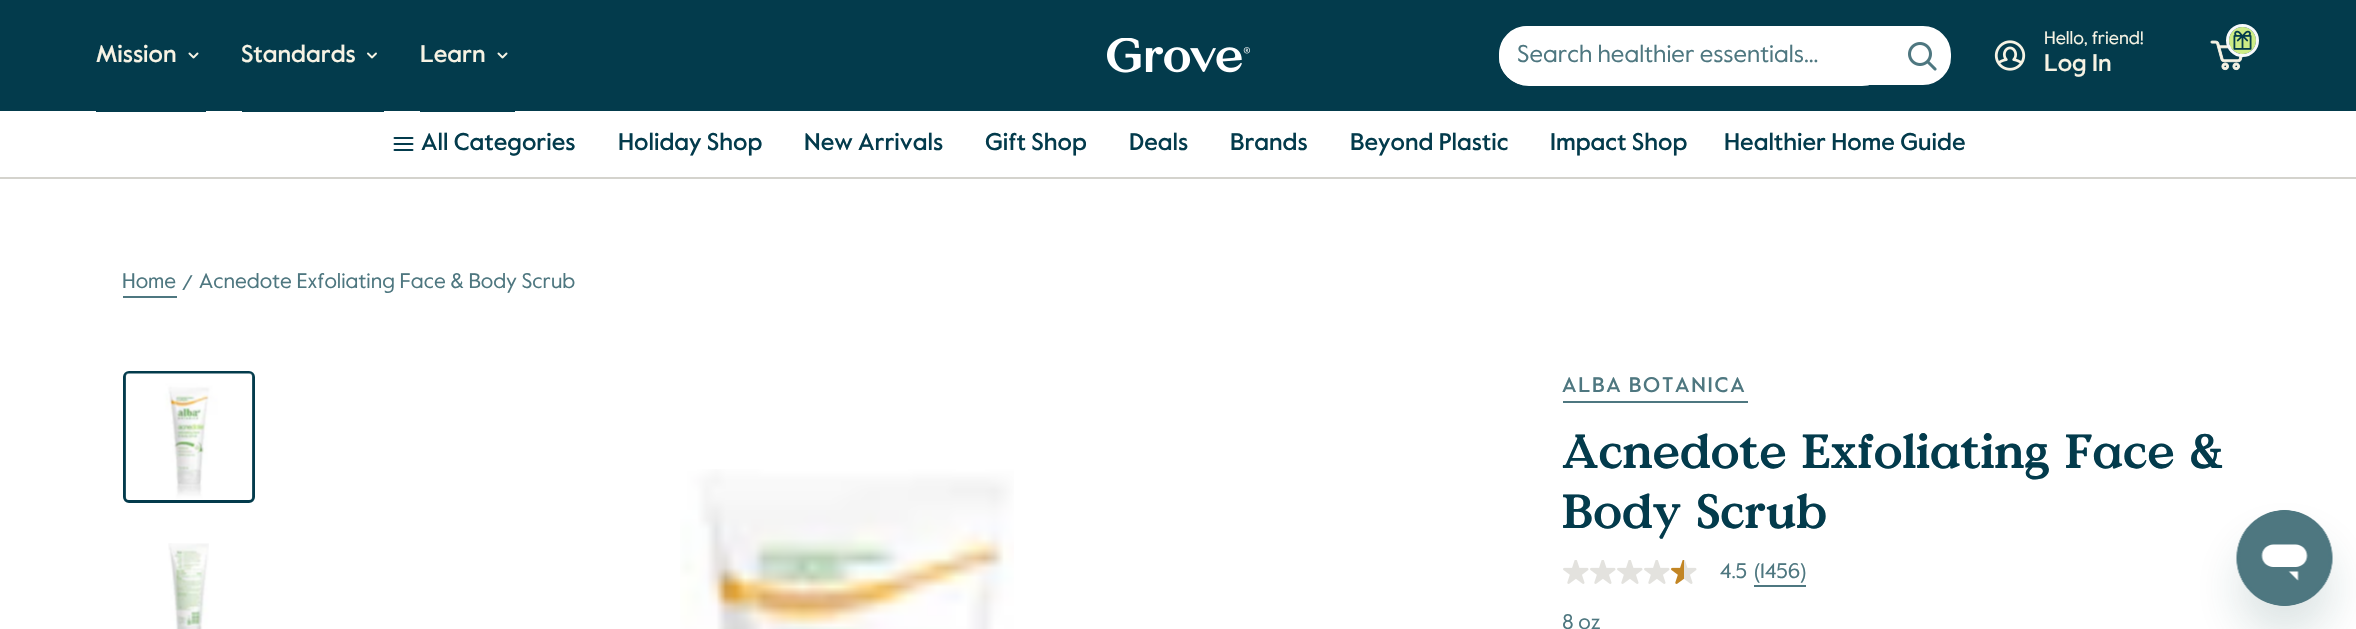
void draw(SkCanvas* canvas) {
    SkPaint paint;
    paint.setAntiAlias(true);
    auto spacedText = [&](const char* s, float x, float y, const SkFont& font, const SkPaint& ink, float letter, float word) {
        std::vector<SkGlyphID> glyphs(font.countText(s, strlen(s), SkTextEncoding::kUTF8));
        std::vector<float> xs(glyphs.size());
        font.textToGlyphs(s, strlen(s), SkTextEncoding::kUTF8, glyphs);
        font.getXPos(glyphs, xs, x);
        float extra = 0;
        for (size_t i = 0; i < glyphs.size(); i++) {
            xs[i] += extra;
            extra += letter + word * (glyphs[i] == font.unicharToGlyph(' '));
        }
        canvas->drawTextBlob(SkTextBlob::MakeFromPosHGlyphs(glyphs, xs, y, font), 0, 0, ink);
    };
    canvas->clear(0xFFFFFFFF);
    paint.setColor(0xFF033B4C);
    canvas->drawRect(SkRect::MakeXYWH(0, 0, 2356, 111), paint);
    SkFont font1(fontMgr->matchFamilyStyle("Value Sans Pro", SkFontStyle(500, SkFontStyle::kNormal_Width, SkFontStyle::kUpright_Slant)), 24);
    font1.setSubpixel(true);
    paint.setColor(0xFFF7F3E4);
    canvas->drawString("Mission", 96, 62, font1, paint);
    canvas->drawImageRect(SkImages::DeferredFromEncodedData(SkData::MakeFromFileName("img1.png")), SkRect::MakeXYWH(188, 52, 11, 7), SkSamplingOptions());
    paint.setColor(0xFF033B4C);
    canvas->drawRect(SkRect::MakeXYWH(96, 111, 110, 1), paint);
    paint.setColor(0xFFF7F3E4);
    canvas->drawString("Standards", 241, 62, font1, paint);
    canvas->drawImageRect(SkImages::DeferredFromEncodedData(SkData::MakeFromFileName("img2.png")), SkRect::MakeXYWH(367, 52, 10, 7), SkSamplingOptions());
    paint.setColor(0xFF033B4C);
    canvas->drawRect(SkRect::MakeXYWH(242, 111, 142, 1), paint);
    paint.setColor(0xFFF7F3E4);
    canvas->drawString("Learn", 420, 62, font1, paint);
    canvas->drawImageRect(SkImages::DeferredFromEncodedData(SkData::MakeFromFileName("img1.png")), SkRect::MakeXYWH(497, 52, 11, 7), SkSamplingOptions());
    paint.setColor(0xFF033B4C);
    canvas->drawRect(SkRect::MakeXYWH(420, 111, 95, 1), paint);
    canvas->drawImageRect(SkImages::DeferredFromEncodedData(SkData::MakeFromFileName("img3.png")), SkRect::MakeXYWH(1107, 38, 143, 35), SkSamplingOptions());
    paint.setColor(0xFFFFFFFF);
    canvas->drawRoundRect(SkRect::MakeXYWH(1498, 25, 454, 61), 29, 29, paint);
    paint.setStyle(SkPaint::kStroke_Style);
    paint.setStrokeWidth(2);
    paint.setColor(0xFF033B4C);
    canvas->drawRoundRect(SkRect::MakeXYWH(1498, 25, 454, 61), 29, 29, paint);
    paint.setStyle(SkPaint::kFill_Style);
    paint.setColor(0xFFFFFFFF);
    canvas->drawRoundRect(SkRect::MakeXYWH(1499, 26, 393, 60), 30, 30, paint);
    SkFont font2(fontMgr->matchFamilyStyle("Value Sans Pro", SkFontStyle::Normal()), 24);
    font2.setSubpixel(true);
    paint.setColor(0xFF4E7780);
    canvas->drawString("Search healthier essentials...", 1517, 62, font2, paint);
    canvas->drawImageRect(SkImages::DeferredFromEncodedData(SkData::MakeFromFileName("img4.png")), SkRect::MakeXYWH(1908, 42, 29, 29), SkSamplingOptions());
    canvas->drawImageRect(SkImages::DeferredFromEncodedData(SkData::MakeFromFileName("img5.png")), SkRect::MakeXYWH(1994, 40, 32, 31), SkSamplingOptions());
    SkFont font3(fontMgr->matchFamilyStyle("Value Sans Pro", SkFontStyle::Normal()), 18);
    font3.setSubpixel(true);
    paint.setColor(0xFFF7F3E4);
    canvas->drawString("Hello, friend!", 2044, 44, font3, paint);
    canvas->drawString("Log In", 2044, 71, font1, paint);
    canvas->drawImageRect(SkImages::DeferredFromEncodedData(SkData::MakeFromFileName("img7.png")), SkRect::MakeXYWH(2210, 40, 34, 31), SkSamplingOptions());
    paint.setColor(0xFFCDEC85);
    canvas->drawCircle(2242.5f, 40.5f, 13.5f, paint);
    canvas->drawImageRect(SkImages::DeferredFromEncodedData(SkData::MakeFromFileName("img6.png")), SkRect::MakeXYWH(2233, 30, 19, 20), SkSamplingOptions());
    paint.setStyle(SkPaint::kStroke_Style);
    paint.setStrokeWidth(3);
    paint.setColor(0xFFF8FAFB);
    canvas->drawCircle(2242.5f, 40.5f, 15, paint);
    paint.setStyle(SkPaint::kFill_Style);
    paint.setColor(0xFFD4D3CD);
    canvas->drawRect(SkRect::MakeXYWH(0, 177, 2356, 2), paint);
    canvas->drawImageRect(SkImages::DeferredFromEncodedData(SkData::MakeFromFileName("img8.png")), SkRect::MakeXYWH(393, 137, 21, 14), SkSamplingOptions());
    paint.setColor(0xFF033B4C);
    canvas->drawString("All Categories", 421, 150, font1, paint);
    canvas->drawString("Holiday Shop", 618, 150, font1, paint);
    canvas->drawString("New Arrivals", 804, 150, font1, paint);
    canvas->drawString("Gift Shop", 985, 150, font1, paint);
    canvas->drawString("Deals", 1129, 150, font1, paint);
    canvas->drawString("Brands", 1230, 150, font1, paint);
    canvas->drawString("Beyond Plastic", 1350, 150, font1, paint);
    canvas->drawString("Impact Shop", 1550, 150, font1, paint);
    canvas->drawString("Healthier Home Guide", 1724, 150, font1, paint);
    paint.setColor(0xFF4E7780);
    canvas->drawRect(SkRect::MakeXYWH(123, 296, 54, 2), paint);
    SkFont font4(fontMgr->matchFamilyStyle("Value Sans Pro", SkFontStyle::Normal()), 21);
    font4.setSubpixel(true);
    canvas->drawString("Home", 122, 288, font4, paint);
    canvas->drawString("/", 182, 290, font4, paint);
    canvas->drawString("Acnedote Exfoliating Face & Body Scrub", 199, 288, font4, paint);
    paint.setStyle(SkPaint::kStroke_Style);
    paint.setColor(0xFF033B4C);
    canvas->drawRoundRect(SkRect::MakeXYWH(124.5f, 372.5f, 129, 129), 4.5f, 4.5f, paint);
    canvas->drawImageRect(SkImages::DeferredFromEncodedData(SkData::MakeFromFileName("img9.png")), SkRect::MakeXYWH(125, 373, 128, 127), SkSamplingOptions());
    canvas->drawImageRect(SkImages::DeferredFromEncodedData(SkData::MakeFromFileName("img10.png")), SkRect::MakeXYWH(168, 543, 41, 86), SkSamplingOptions());
    canvas->drawImageRect(SkImages::DeferredFromEncodedData(SkData::MakeFromFileName("img11.png")), SkRect::MakeXYWH(680, 469, 334, 160), SkSamplingOptions());
    paint.setStyle(SkPaint::kFill_Style);
    paint.setColor(0xFF4E7780);
    canvas->drawRect(SkRect::MakeXYWH(1563, 401, 185, 2), paint);
    SkFont font5(fontMgr->matchFamilyStyle("Value Sans Pro", SkFontStyle(500, SkFontStyle::kNormal_Width, SkFontStyle::kUpright_Slant)), 21);
    font5.setSubpixel(true);
    spacedText("ALBA BOTANICA", 1562, 392, font5, paint, 1.75f, 0);
    SkFont font6(fontMgr->matchFamilyStyle("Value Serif", SkFontStyle::Bold()), 48);
    font6.setSubpixel(true);
    paint.setColor(0xFF033B4C);
    canvas->drawString("Acnedote Exfoliating Face &", 1562, 468, font6, paint);
    canvas->drawString("Body Scrub", 1562, 528, font6, paint);
    canvas->drawImageRect(SkImages::DeferredFromEncodedData(SkData::MakeFromFileName("img12.png")), SkRect::MakeXYWH(1563, 560, 26, 24), SkSamplingOptions());
    canvas->drawImageRect(SkImages::DeferredFromEncodedData(SkData::MakeFromFileName("img12.png")), SkRect::MakeXYWH(1590, 560, 26, 24), SkSamplingOptions());
    canvas->drawImageRect(SkImages::DeferredFromEncodedData(SkData::MakeFromFileName("img12.png")), SkRect::MakeXYWH(1617, 560, 26, 24), SkSamplingOptions());
    canvas->drawImageRect(SkImages::DeferredFromEncodedData(SkData::MakeFromFileName("img12.png")), SkRect::MakeXYWH(1644, 560, 26, 24), SkSamplingOptions());
    canvas->drawImageRect(SkImages::DeferredFromEncodedData(SkData::MakeFromFileName("img13.png")), SkRect::MakeXYWH(1671, 560, 26, 24), SkSamplingOptions());
    paint.setColor(0xFF4E7780);
    canvas->drawString("4.5", 1720, 578, font4, paint);
    canvas->drawRect(SkRect::MakeXYWH(1754, 585, 52, 2), paint);
    canvas->drawString("(1456)", 1754, 578, font4, paint);
    canvas->drawString("8 oz", 1562, 629, font4, paint);
    paint.setColor(0x2617494D);
    paint.setMaskFilter(SkMaskFilter::MakeBlur(kNormal_SkBlurStyle, 22.5f));
    canvas->drawRoundRect(SkRect::MakeXYWH(2237, 540, 96, 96), 48, 48, paint);
    paint.setMaskFilter(nullptr);
    canvas->drawImageRect(SkImages::DeferredFromEncodedData(SkData::MakeFromFileName("img14.png")), SkRect::MakeXYWH(2236, 510, 97, 96), SkSamplingOptions());
}
